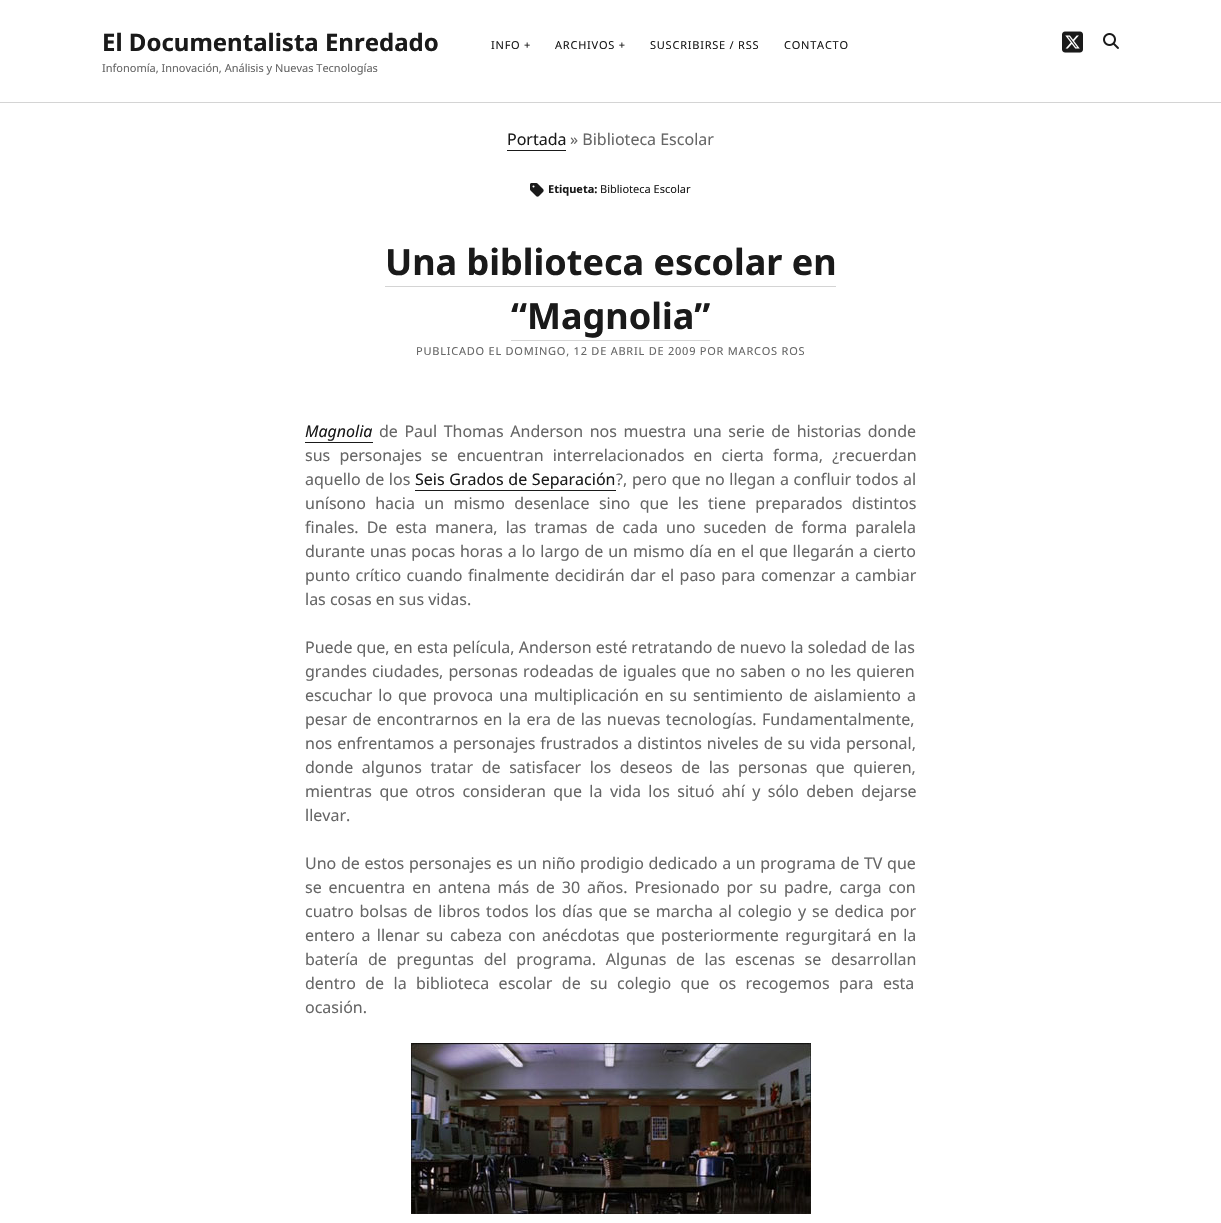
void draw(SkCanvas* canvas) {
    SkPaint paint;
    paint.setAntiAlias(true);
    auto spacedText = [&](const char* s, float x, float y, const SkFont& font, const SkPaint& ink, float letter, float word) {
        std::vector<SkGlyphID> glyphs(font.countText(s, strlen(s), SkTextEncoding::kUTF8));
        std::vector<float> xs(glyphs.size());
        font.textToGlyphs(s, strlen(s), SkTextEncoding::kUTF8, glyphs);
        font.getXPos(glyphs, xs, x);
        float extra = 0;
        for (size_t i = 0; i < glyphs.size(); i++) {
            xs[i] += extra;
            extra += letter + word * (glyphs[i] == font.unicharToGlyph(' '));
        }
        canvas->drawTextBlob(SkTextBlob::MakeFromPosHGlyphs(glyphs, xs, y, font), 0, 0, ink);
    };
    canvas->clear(0xFFFFFFFF);
    paint.setColor(0xFFD4D4D4);
    canvas->drawRect(SkRect::MakeXYWH(0, 102, 1221, 1), paint);
    SkFont font1(fontMgr->matchFamilyStyle("Noto Sans", SkFontStyle::Bold()), 24);
    font1.setSubpixel(true);
    paint.setColor(0xFF1A1A1A);
    canvas->drawString("El Documentalista Enredado", 102, 51, font1, paint);
    SkFont font2(fontMgr->matchFamilyStyle("Noto Sans", SkFontStyle::Normal()), 11);
    font2.setSubpixel(true);
    paint.setColor(0xFF666666);
    canvas->drawString("Infonomía, Innovación, Análisis y Nuevas Tecnologías", 102, 72, font2, paint);
    paint.setColor(0xFF1A1A1A);
    spacedText("INFO +", 491, 49, font2, paint, 0.77f, 0);
    spacedText("ARCHIVOS +", 555, 49, font2, paint, 0.77f, 0);
    spacedText("SUSCRIBIRSE / RSS", 650, 49, font2, paint, 0.77f, 0);
    spacedText("CONTACTO", 784, 49, font2, paint, 0.77f, 0);
    canvas->drawImageRect(SkImages::DeferredFromEncodedData(SkData::MakeFromFileName("img1.png")), SkRect::MakeXYWH(1062, 31, 21, 22), SkSamplingOptions());
    canvas->drawImageRect(SkImages::DeferredFromEncodedData(SkData::MakeFromFileName("img2.png")), SkRect::MakeXYWH(1103, 33, 16, 16), SkSamplingOptions());
    SkFont font3(fontMgr->matchFamilyStyle("Noto Sans", SkFontStyle::Normal()), 16);
    font3.setSubpixel(true);
    canvas->drawString("Portada", 507, 145, font3, paint);
    canvas->drawRect(SkRect::MakeXYWH(507, 150, 59, 1), paint);
    paint.setColor(0xFF666666);
    canvas->drawString("» Biblioteca Escolar", 570, 145, font3, paint);
    canvas->drawImageRect(SkImages::DeferredFromEncodedData(SkData::MakeFromFileName("img3.png")), SkRect::MakeXYWH(530, 183, 14, 14), SkSamplingOptions());
    SkFont font4(fontMgr->matchFamilyStyle("Noto Sans", SkFontStyle::Bold()), 11);
    font4.setSubpixel(true);
    paint.setColor(0xFF1A1A1A);
    canvas->drawString("Etiqueta:", 548, 193, font4, paint);
    canvas->drawString("Biblioteca Escolar", 600, 193, font2, paint);
    SkFont font5(fontMgr->matchFamilyStyle("Noto Sans", SkFontStyle::Bold()), 36);
    font5.setSubpixel(true);
    canvas->drawString("Una biblioteca escolar en", 385, 275, font5, paint);
    paint.setColor(0xFFD4D4D4);
    canvas->drawRect(SkRect::MakeXYWH(385, 286, 451, 1), paint);
    paint.setColor(0xFF1A1A1A);
    canvas->drawString("“Magnolia”", 511, 329, font5, paint);
    paint.setColor(0xFFD4D4D4);
    canvas->drawRect(SkRect::MakeXYWH(511, 340, 199, 1), paint);
    paint.setColor(0xFF666666);
    spacedText("PUBLICADO EL DOMINGO, 12 DE ABRIL DE 2009 POR MARCOS ROS", 416, 355, font2, paint, 0.77f, 0);
    SkFont font6(fontMgr->matchFamilyStyle("Noto Sans", SkFontStyle::Italic()), 16);
    font6.setSubpixel(true);
    paint.setColor(0xFF1A1A1A);
    canvas->drawString("Magnolia", 305, 437, font6, paint);
    canvas->drawRect(SkRect::MakeXYWH(305, 442, 68, 1), paint);
    paint.setColor(0xFF666666);
    spacedText("de Paul Thomas Anderson nos muestra una serie de historias donde", 379, 437, font3, paint, 0, 2.4f);
    spacedText("sus personajes se encuentran interrelacionados en cierta forma, ¿recuerdan", 305, 461, font3, paint, 0, 5);
    spacedText("aquello de los", 305, 485, font3, paint, 0, 0.5f);
    paint.setColor(0xFF1A1A1A);
    spacedText("Seis Grados de Separación", 415, 485, font3, paint, 0, 0.5f);
    canvas->drawRect(SkRect::MakeXYWH(415, 490, 201, 1), paint);
    paint.setColor(0xFF666666);
    spacedText("?, pero que no llegan a confluir todos al", 616, 485, font3, paint, 0, 0.5f);
    spacedText("unísono hacia un mismo desenlace sino que les tiene preparados distintos", 305, 509, font3, paint, 0, 5.25f);
    spacedText("finales. De esta manera, las tramas de cada uno suceden de forma paralela", 305, 533, font3, paint, 0, 3.9f);
    spacedText("durante unas pocas horas a lo largo de un mismo día en el que llegarán a cierto", 305, 557, font3, paint, 0, 0.75f);
    spacedText("punto crítico cuando finalmente decidirán dar el paso para comenzar a cambiar", 305, 581, font3, paint, 0, 1.25f);
    canvas->drawString("las cosas en sus vidas.", 305, 605, font3, paint);
    canvas->drawString("Puede que, en esta película, Anderson esté retratando de nuevo la soledad de las", 305, 653, font3, paint);
    spacedText("grandes ciudades, personas rodeadas de iguales que no saben o no les quieren", 305, 677, font3, paint, 0, 1);
    spacedText("escuchar lo que provoca una multiplicación en su sentimiento de aislamiento a", 305, 701, font3, paint, 0, 1.75f);
    spacedText("pesar de encontrarnos en la era de las nuevas tecnologías. Fundamentalmente,", 305, 725, font3, paint, 0, 1.25f);
    spacedText("nos enfrentamos a personajes frustrados a distintos niveles de su vida personal,", 305, 749, font3, paint, 0, 0.75f);
    spacedText("donde algunos tratar de satisfacer los deseos de las personas que quieren,", 305, 773, font3, paint, 0, 4.4f);
    spacedText("mientras que otros consideran que la vida los situó ahí y sólo deben dejarse", 305, 797, font3, paint, 0, 3.25f);
    canvas->drawString("llevar.", 305, 821, font3, paint);
    spacedText("Uno de estos personajes es un niño prodigio dedicado a un programa de TV que", 305, 869, font3, paint, 0, 0.5f);
    spacedText("se encuentra en antena más de 30 años. Presionado por su padre, carga con", 305, 893, font3, paint, 0, 2.75f);
    spacedText("cuatro bolsas de libros todos los días que se marcha al colegio y se dedica por", 305, 917, font3, paint, 0, 1.75f);
    spacedText("entero a llenar su cabeza con anécdotas que posteriormente regurgitará en la", 305, 941, font3, paint, 0, 2.25f);
    spacedText("batería de preguntas del programa. Algunas de las escenas se desarrollan", 305, 965, font3, paint, 0, 5.5f);
    spacedText("dentro de la biblioteca escolar de su colegio que os recogemos para esta", 305, 989, font3, paint, 0, 5.25f);
    canvas->drawString("ocasión.", 305, 1013, font3, paint);
    canvas->drawImageRect(SkImages::DeferredFromEncodedData(SkData::MakeFromFileName("img4.png")), SkRect::MakeXYWH(411, 1043, 400, 171), SkSamplingOptions());
}
